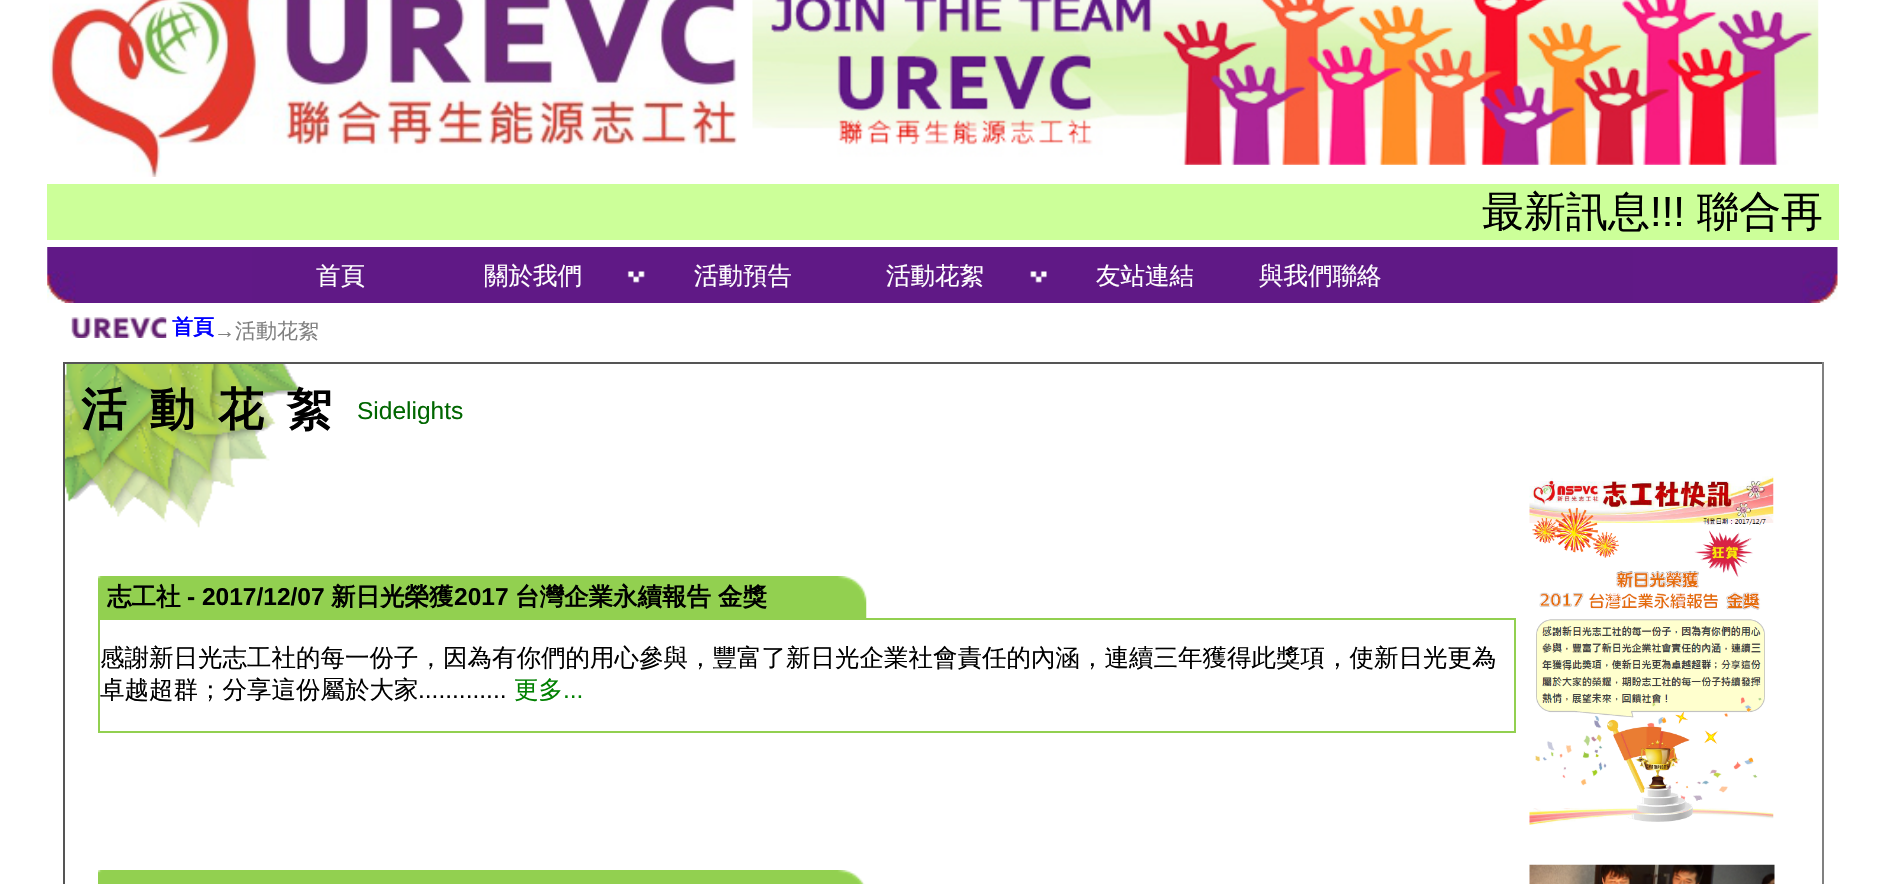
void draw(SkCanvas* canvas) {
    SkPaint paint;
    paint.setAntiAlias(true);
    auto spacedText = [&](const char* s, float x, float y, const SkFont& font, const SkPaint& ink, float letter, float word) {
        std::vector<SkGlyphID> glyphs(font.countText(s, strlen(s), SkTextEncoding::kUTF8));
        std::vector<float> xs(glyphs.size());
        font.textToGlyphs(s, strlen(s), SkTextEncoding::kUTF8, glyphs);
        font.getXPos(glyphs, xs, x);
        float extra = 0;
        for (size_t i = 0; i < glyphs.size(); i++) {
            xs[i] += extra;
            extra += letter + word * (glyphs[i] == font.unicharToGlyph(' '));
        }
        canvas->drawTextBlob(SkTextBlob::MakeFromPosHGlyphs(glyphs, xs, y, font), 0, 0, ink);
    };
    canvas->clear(0xFFFFFFFF);
    canvas->drawImageRect(SkImages::DeferredFromEncodedData(SkData::MakeFromFileName("img1.png")), SkRect::MakeXYWH(49, 0, 688, 177), SkSamplingOptions());
    canvas->drawImageRect(SkImages::DeferredFromEncodedData(SkData::MakeFromFileName("img2.png")), SkRect::MakeXYWH(752, 0, 1067, 165), SkSamplingOptions());
    paint.setColor(0xFFCCFF99);
    canvas->drawRect(SkRect::MakeXYWH(47, 184, 1792, 56), paint);
    SkFont font1(fontMgr->matchFamilyStyle("WenQuanYi Zen Hei", SkFontStyle(500, SkFontStyle::kNormal_Width, SkFontStyle::kUpright_Slant)), 42);
    font1.setSubpixel(true);
    paint.setColor(0xFF000000);
    canvas->drawString("最新訊息", 1482, 226, font1, paint);
    SkFont font2(fontMgr->matchFamilyStyle("Liberation Sans", SkFontStyle::Normal()), 42);
    font2.setSubpixel(true);
    canvas->drawString("!!!", 1650, 226, font2, paint);
    canvas->drawString("聯合再", 1697, 226, font1, paint);
    canvas->drawImageRect(SkImages::DeferredFromEncodedData(SkData::MakeFromFileName("img3.png")), SkRect::MakeXYWH(47, 247, 205, 56), SkSamplingOptions());
    paint.setColor(0xFF601986);
    canvas->drawRect(SkRect::MakeXYWH(252, 247, 1381, 56), paint);
    SkFont font3(fontMgr->matchFamilyStyle("WenQuanYi Zen Hei", SkFontStyle(500, SkFontStyle::kNormal_Width, SkFontStyle::kUpright_Slant)), 24.5f);
    font3.setSubpixel(true);
    paint.setColor(0xFFFFFFFF);
    canvas->drawString("首頁", 316, 284, font3, paint);
    canvas->drawImageRect(SkImages::DeferredFromEncodedData(SkData::MakeFromFileName("img4.png")), SkRect::MakeXYWH(627, 271, 18, 12), SkSamplingOptions());
    canvas->drawString("關於我們", 484, 284, font3, paint);
    canvas->drawString("活動預告", 694, 284, font3, paint);
    canvas->drawImageRect(SkImages::DeferredFromEncodedData(SkData::MakeFromFileName("img5.png")), SkRect::MakeXYWH(1030, 271, 17, 12), SkSamplingOptions());
    canvas->drawString("活動花絮", 886, 284, font3, paint);
    canvas->drawString("友站連結", 1096, 284, font3, paint);
    canvas->drawString("與我們聯絡", 1259, 284, font3, paint);
    canvas->drawImageRect(SkImages::DeferredFromEncodedData(SkData::MakeFromFileName("img6.png")), SkRect::MakeXYWH(1633, 247, 205, 56), SkSamplingOptions());
    canvas->drawImageRect(SkImages::DeferredFromEncodedData(SkData::MakeFromFileName("img7.png")), SkRect::MakeXYWH(71, 317, 96, 21), SkSamplingOptions());
    SkFont font4(fontMgr->matchFamilyStyle("WenQuanYi Zen Hei", SkFontStyle::Bold()), 21);
    font4.setSubpixel(true);
    paint.setColor(0xFF0000FF);
    canvas->drawString("首頁", 172, 334, font4, paint);
    SkFont font5(fontMgr->matchFamilyStyle("Liberation Sans", SkFontStyle::Normal()), 21);
    font5.setSubpixel(true);
    paint.setColor(0xFF808080);
    canvas->drawString("→", 214, 338, font5, paint);
    SkFont font6(fontMgr->matchFamilyStyle("WenQuanYi Zen Hei", SkFontStyle(500, SkFontStyle::kNormal_Width, SkFontStyle::kUpright_Slant)), 21);
    font6.setSubpixel(true);
    canvas->drawString("活動花絮", 235, 338, font6, paint);
    canvas->drawImageRect(SkImages::DeferredFromEncodedData(SkData::MakeFromFileName("img8.png")), SkRect::MakeXYWH(65, 364, 237, 164), SkSamplingOptions());
    paint.setColor(0xFF555555);
    canvas->drawRect(SkRect::MakeXYWH(63, 362, 1761, 2), paint);
    paint.setColor(0xFF808080);
    canvas->drawRect(SkRect::MakeXYWH(1822, 362, 2, 522), paint);
    paint.setColor(0xFF555555);
    canvas->drawRect(SkRect::MakeXYWH(63, 362, 2, 522), paint);
    SkFont font7(fontMgr->matchFamilyStyle("WenQuanYi Zen Hei", SkFontStyle::Bold()), 45.5f);
    font7.setSubpixel(true);
    paint.setColor(0xFF000000);
    spacedText("活動花絮", 81, 425, font7, paint, 23, 0);
    SkFont font8(fontMgr->matchFamilyStyle("Liberation Sans", SkFontStyle::Normal()), 24.5f);
    font8.setSubpixel(true);
    paint.setColor(0xFF006600);
    canvas->drawString("Sidelights", 357, 419, font8, paint);
    canvas->drawImageRect(SkImages::DeferredFromEncodedData(SkData::MakeFromFileName("img9.png")), SkRect::MakeXYWH(98, 576, 769, 42), SkSamplingOptions());
    SkFont font9(fontMgr->matchFamilyStyle("WenQuanYi Zen Hei", SkFontStyle::Bold()), 24.5f);
    font9.setSubpixel(true);
    paint.setColor(0xFF000000);
    canvas->drawString("志工社", 107, 605, font9, paint);
    SkFont font10(fontMgr->matchFamilyStyle("Liberation Sans", SkFontStyle::Bold()), 24.5f);
    font10.setSubpixel(true);
    canvas->drawString("- 2017/12/07", 187, 605, font10, paint);
    canvas->drawString("新日光榮獲", 331, 605, font9, paint);
    canvas->drawString("2017", 454, 605, font10, paint);
    canvas->drawString("台灣企業永續報告", 515, 605, font9, paint);
    canvas->drawString("金獎", 718, 605, font9, paint);
    paint.setStyle(SkPaint::kStroke_Style);
    paint.setStrokeWidth(2);
    paint.setColor(0xFF92D050);
    canvas->drawRect(SkRect::MakeXYWH(99, 619, 1416, 113), paint);
    paint.setStyle(SkPaint::kFill_Style);
    paint.setColor(0xFF000000);
    canvas->drawString("感謝新日光志工社的每一份子，因為有你們的用心參與，豐富了新日光企業社會責任的內涵，連續三年獲得此獎項，使新日光更為", 100, 666, font3, paint);
    canvas->drawString("卓越超群；分享這份屬於大家", 100, 698, font3, paint);
    canvas->drawString(".............", 418, 698, font8, paint);
    paint.setColor(0xFF008000);
    canvas->drawString("更多", 514, 698, font3, paint);
    canvas->drawString("...", 563, 698, font8, paint);
    canvas->drawImageRect(SkImages::DeferredFromEncodedData(SkData::MakeFromFileName("img10.png")), SkRect::MakeXYWH(1529, 476, 245, 349), SkSamplingOptions());
    canvas->drawImageRect(SkImages::DeferredFromEncodedData(SkData::MakeFromFileName("img11.png")), SkRect::MakeXYWH(98, 870, 767, 14), SkSamplingOptions());
    canvas->drawImageRect(SkImages::DeferredFromEncodedData(SkData::MakeFromFileName("img12.png")), SkRect::MakeXYWH(1529, 864, 246, 20), SkSamplingOptions());
}
